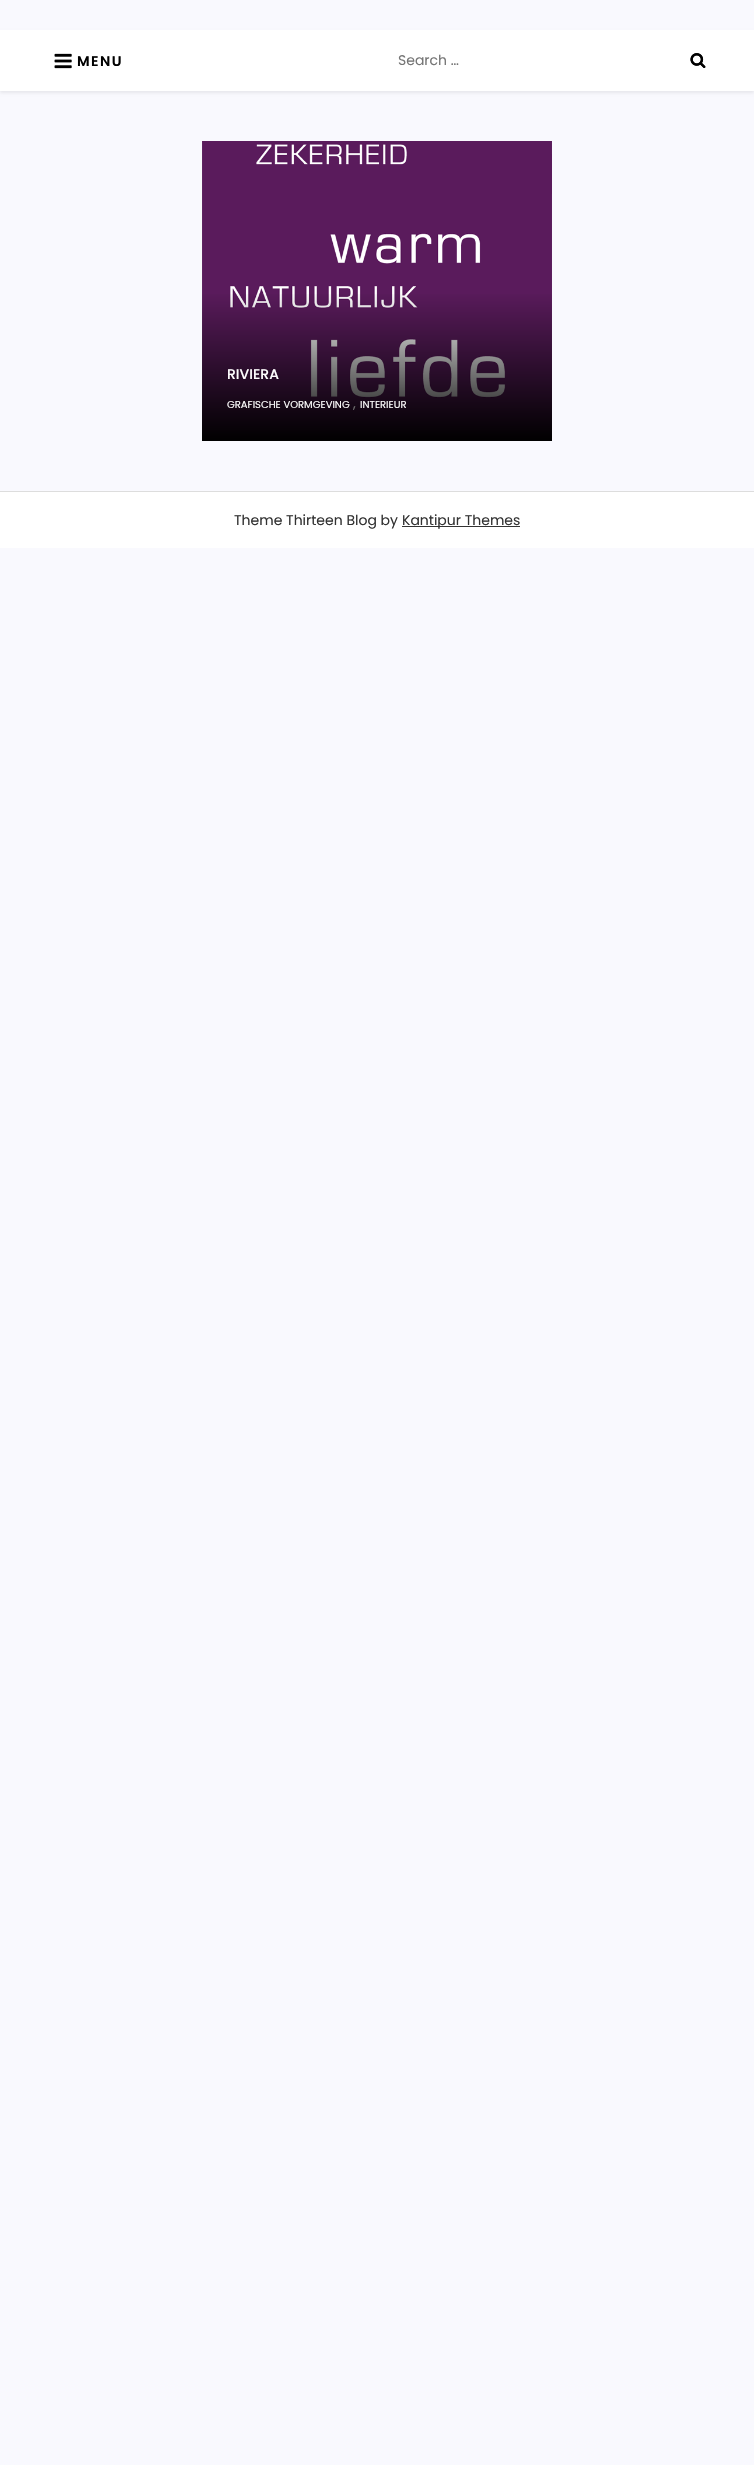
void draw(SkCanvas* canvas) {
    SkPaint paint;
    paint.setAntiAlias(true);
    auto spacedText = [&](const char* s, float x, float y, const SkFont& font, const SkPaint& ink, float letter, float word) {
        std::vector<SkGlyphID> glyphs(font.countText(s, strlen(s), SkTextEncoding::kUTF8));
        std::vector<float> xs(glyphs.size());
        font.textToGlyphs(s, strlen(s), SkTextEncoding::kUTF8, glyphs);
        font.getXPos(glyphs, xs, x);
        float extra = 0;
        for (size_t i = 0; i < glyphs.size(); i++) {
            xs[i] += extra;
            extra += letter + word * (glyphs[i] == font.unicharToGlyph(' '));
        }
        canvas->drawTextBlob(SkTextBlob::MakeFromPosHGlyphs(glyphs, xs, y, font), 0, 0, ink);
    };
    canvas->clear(0xFFF9F9FE);
    paint.setColor(0x12000000);
    paint.setMaskFilter(SkMaskFilter::MakeBlur(kNormal_SkBlurStyle, 1.5f));
    canvas->drawRect(SkRect::MakeXYWH(0, 32, 754, 61), paint);
    paint.setMaskFilter(nullptr);
    paint.setColor(0xFFFFFFFF);
    canvas->drawRect(SkRect::MakeXYWH(0, 30, 754, 61), paint);
    canvas->drawImageRect(SkImages::DeferredFromEncodedData(SkData::MakeFromFileName("img1.png")), SkRect::MakeXYWH(54, 53, 18, 16), SkSamplingOptions());
    SkFont font1(fontMgr->matchFamilyStyle("Poppins", SkFontStyle(600, SkFontStyle::kNormal_Width, SkFontStyle::kUpright_Slant)), 14);
    font1.setSubpixel(true);
    paint.setColor(0xFF000000);
    spacedText("MENU", 77, 66, font1, paint, 1.5f, 0);
    canvas->drawImageRect(SkImages::DeferredFromEncodedData(SkData::MakeFromFileName("img2.png")), SkRect::MakeXYWH(690, 53, 16, 15), SkSamplingOptions());
    SkFont font2(fontMgr->matchFamilyStyle("Poppins", SkFontStyle::Normal()), 14);
    font2.setSubpixel(true);
    paint.setColor(0xFF757575);
    canvas->drawString("Search …", 398, 65, font2, paint);
    canvas->drawImageRect(SkImages::DeferredFromEncodedData(SkData::MakeFromFileName("img3.png")), SkRect::MakeXYWH(690, 53, 16, 15), SkSamplingOptions());
    canvas->drawImageRect(SkImages::DeferredFromEncodedData(SkData::MakeFromFileName("img4.png")), SkRect::MakeXYWH(202, 141, 350, 299), SkSamplingOptions());
    paint.setColor(0xFF5A1B5C);
    canvas->drawRect(SkRect::MakeXYWH(551, 154, 1, 40), paint);
    {
        const SkColor colors[] = {0x00000000, 0xFF000000};
        const float stops[] = {0.5f, 1};
        const SkPoint ends[] = {{377, 141}, {377, 441}};
        paint.setShader(SkGradientShader::MakeLinear(ends, colors, stops, 2, SkTileMode::kClamp));
        paint.setAlpha(255);
    }
    canvas->drawRect(SkRect::MakeXYWH(202, 294, 350, 147), paint);
    SkFont font3(fontMgr->matchFamilyStyle("Poppins", SkFontStyle(500, SkFontStyle::kNormal_Width, SkFontStyle::kUpright_Slant)), 14);
    font3.setSubpixel(true);
    paint.setShader(nullptr);
    paint.setColor(0xFFFFFFFF);
    canvas->drawString("RIVIERA", 227, 379, font3, paint);
    SkFont font4(fontMgr->matchFamilyStyle("Poppins", SkFontStyle::Normal()), 10);
    font4.setSubpixel(true);
    canvas->drawString("GRAFISCHE VORMGEVING", 227, 408, font4, paint);
    paint.setColor(0xFF6F6F6F);
    canvas->drawString(",", 353, 408, font2, paint);
    paint.setColor(0xFFFFFFFF);
    canvas->drawString("INTERIEUR", 360, 408, font4, paint);
    canvas->drawRect(SkRect::MakeXYWH(0, 492, 754, 56), paint);
    paint.setColor(0xFFDDDDDD);
    canvas->drawRect(SkRect::MakeXYWH(0, 491, 754, 1), paint);
    paint.setColor(0xFF333333);
    canvas->drawString("Theme Thirteen Blog by", 234, 525, font2, paint);
    canvas->drawRect(SkRect::MakeXYWH(402, 526, 118, 1), paint);
    canvas->drawString("Kantipur Themes", 402, 525, font2, paint);
}
